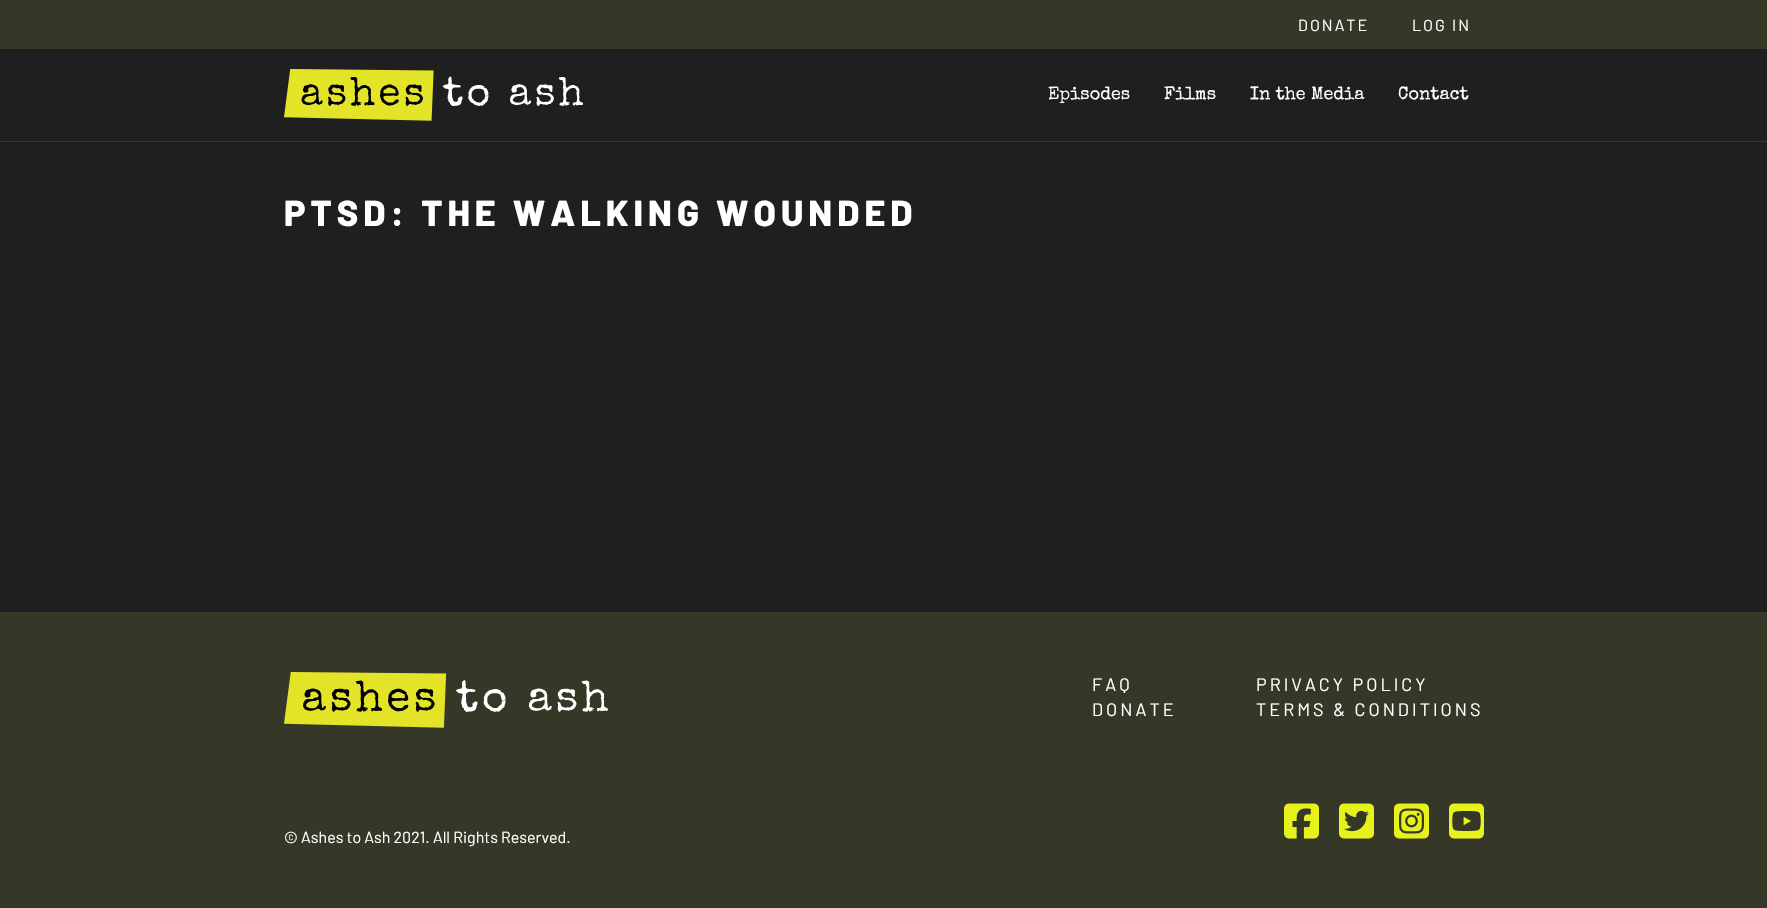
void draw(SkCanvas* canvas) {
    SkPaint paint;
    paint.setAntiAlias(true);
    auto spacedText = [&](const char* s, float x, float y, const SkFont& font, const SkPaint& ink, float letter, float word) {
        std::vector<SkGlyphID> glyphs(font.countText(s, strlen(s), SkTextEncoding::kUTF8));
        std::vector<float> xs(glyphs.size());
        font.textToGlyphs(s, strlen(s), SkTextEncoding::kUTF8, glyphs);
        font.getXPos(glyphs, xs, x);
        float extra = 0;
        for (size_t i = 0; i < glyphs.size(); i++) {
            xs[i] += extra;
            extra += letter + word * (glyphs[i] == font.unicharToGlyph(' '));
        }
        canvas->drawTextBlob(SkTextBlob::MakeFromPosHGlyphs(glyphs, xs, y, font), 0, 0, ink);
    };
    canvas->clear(0xFF1F1F1F);
    paint.setColor(0xFF363827);
    canvas->drawRect(SkRect::MakeXYWH(0, 141, 1767, 1), paint);
    canvas->drawRect(SkRect::MakeXYWH(0, 0, 1767, 49), paint);
    SkFont font1(fontMgr->matchFamilyStyle("Barlow", SkFontStyle::Normal()), 16);
    font1.setSubpixel(true);
    paint.setColor(0xFFFFFFFF);
    spacedText("DONATE", 1298, 31, font1, paint, 2, 0);
    spacedText("LOG IN", 1412, 31, font1, paint, 2, 0);
    canvas->drawImageRect(SkImages::DeferredFromEncodedData(SkData::MakeFromFileName("img1.png")), SkRect::MakeXYWH(284, 69, 299, 52), SkSamplingOptions());
    SkFont font2(fontMgr->matchFamilyStyle("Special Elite", SkFontStyle::Normal()), 18);
    font2.setSubpixel(true);
    canvas->drawString("Episodes", 1048, 99, font2, paint);
    canvas->drawString("Films", 1164, 99, font2, paint);
    canvas->drawString("In the Media", 1250, 99, font2, paint);
    canvas->drawString("Contact", 1398, 99, font2, paint);
    SkFont font3(fontMgr->matchFamilyStyle("Barlow", SkFontStyle(800, SkFontStyle::kNormal_Width, SkFontStyle::kUpright_Slant)), 36);
    font3.setSubpixel(true);
    spacedText("PTSD: THE WALKING WOUNDED", 284, 226, font3, paint, 5, 0);
    paint.setColor(0xFF363827);
    canvas->drawRect(SkRect::MakeXYWH(0, 612, 1767, 296), paint);
    canvas->drawImageRect(SkImages::DeferredFromEncodedData(SkData::MakeFromFileName("img2.png")), SkRect::MakeXYWH(284, 672, 324, 56), SkSamplingOptions());
    SkFont font4(fontMgr->matchFamilyStyle("Barlow", SkFontStyle::Normal()), 18);
    font4.setSubpixel(true);
    paint.setColor(0xFFFFFFFF);
    spacedText("FAQ", 1092, 691, font4, paint, 3, 0);
    spacedText("DONATE", 1092, 716, font4, paint, 3, 0);
    spacedText("PRIVACY POLICY", 1256, 691, font4, paint, 3, 0);
    spacedText("TERMS & CONDITIONS", 1256, 716, font4, paint, 3, 0);
    canvas->drawString("© Ashes to Ash 2021. All Rights Reserved.", 284, 843, font1, paint);
    canvas->drawImageRect(SkImages::DeferredFromEncodedData(SkData::MakeFromFileName("img3.png")), SkRect::MakeXYWH(1284, 803, 35, 36), SkSamplingOptions());
    canvas->drawImageRect(SkImages::DeferredFromEncodedData(SkData::MakeFromFileName("img4.png")), SkRect::MakeXYWH(1339, 803, 35, 36), SkSamplingOptions());
    canvas->drawImageRect(SkImages::DeferredFromEncodedData(SkData::MakeFromFileName("img5.png")), SkRect::MakeXYWH(1394, 803, 35, 36), SkSamplingOptions());
    canvas->drawImageRect(SkImages::DeferredFromEncodedData(SkData::MakeFromFileName("img6.png")), SkRect::MakeXYWH(1449, 803, 35, 36), SkSamplingOptions());
}
